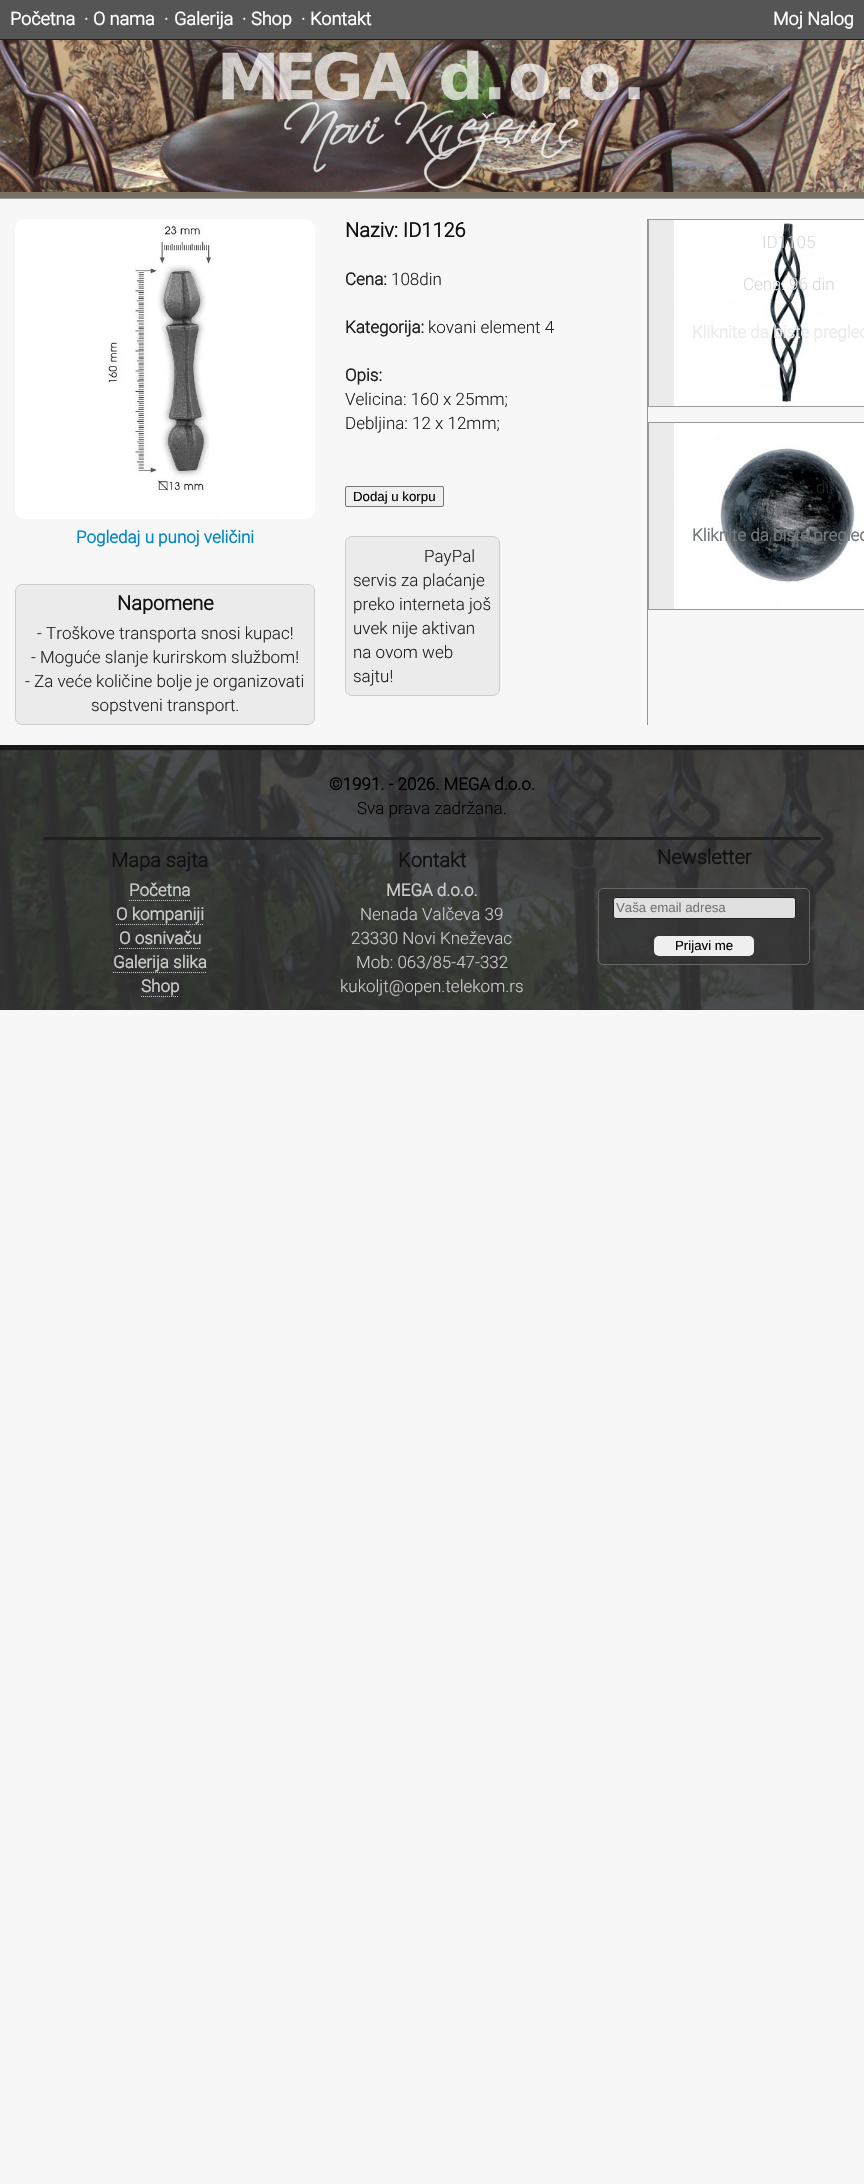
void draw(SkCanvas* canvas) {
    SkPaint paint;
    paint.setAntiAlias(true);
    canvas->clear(0xFFF7F7F7);
    paint.setColor(0xFF7A6F65);
    canvas->drawRect(SkRect::MakeXYWH(0, 192, 864, 6), paint);
    paint.setColor(0xFF999999);
    canvas->drawRect(SkRect::MakeXYWH(0, 198, 864, 1), paint);
    paint.setColor(0xFF555555);
    canvas->drawRect(SkRect::MakeXYWH(0, 0, 864, 39), paint);
    paint.setColor(0xFF212121);
    canvas->drawRect(SkRect::MakeXYWH(0, 39, 864, 1), paint);
    SkFont font1(fontMgr->matchFamilyStyle("Roboto", SkFontStyle::Bold()), 18);
    font1.setSubpixel(true);
    paint.setColor(0xFFFFFFFF);
    canvas->drawString("Početna", 10, 25, font1, paint);
    SkFont font2(fontMgr->matchFamilyStyle("Roboto", SkFontStyle::Bold()), 17);
    font2.setSubpixel(true);
    canvas->drawString("·", 84, 25, font2, paint);
    canvas->drawString("O nama", 93, 25, font1, paint);
    canvas->drawString("·", 164, 25, font2, paint);
    canvas->drawString("Galerija", 174, 25, font1, paint);
    canvas->drawString("·", 242, 25, font2, paint);
    canvas->drawString("Shop", 251, 25, font1, paint);
    canvas->drawString("·", 301, 25, font2, paint);
    canvas->drawString("Kontakt", 310, 25, font1, paint);
    canvas->drawString("Moj Nalog", 773, 25, font1, paint);
    canvas->drawImageRect(SkImages::DeferredFromEncodedData(SkData::MakeFromFileName("img1.png")), SkRect::MakeXYWH(0, 40, 864, 152), SkSamplingOptions());
    canvas->drawImageRect(SkImages::DeferredFromEncodedData(SkData::MakeFromFileName("img2.png")), SkRect::MakeXYWH(222, 50, 418, 139), SkSamplingOptions());
    paint.setColor(0xFF959595);
    canvas->drawRect(SkRect::MakeXYWH(647, 219, 1, 506), paint);
    canvas->drawImageRect(SkImages::DeferredFromEncodedData(SkData::MakeFromFileName("img3.png")), SkRect::MakeXYWH(15, 219, 300, 300), SkSamplingOptions());
    paint.setColor(0xFF0287C3);
    canvas->drawString("Pogledaj u punoj veličini", 76, 543, font2, paint);
    paint.setColor(0xFFEBEBEB);
    canvas->drawRoundRect(SkRect::MakeXYWH(15.5f, 584.5f, 299, 140), 6.5f, 6.5f, paint);
    paint.setStyle(SkPaint::kStroke_Style);
    paint.setStrokeWidth(1);
    paint.setColor(0xFFCCCCCC);
    canvas->drawRoundRect(SkRect::MakeXYWH(15.5f, 584.5f, 299, 140), 6.5f, 6.5f, paint);
    SkFont font3(fontMgr->matchFamilyStyle("Roboto", SkFontStyle::Bold()), 20);
    font3.setSubpixel(true);
    paint.setStyle(SkPaint::kFill_Style);
    paint.setColor(0xFF111111);
    canvas->drawString("Napomene", 117, 610, font3, paint);
    SkFont font4(fontMgr->matchFamilyStyle("Roboto", SkFontStyle(300, SkFontStyle::kNormal_Width, SkFontStyle::kUpright_Slant)), 17);
    font4.setSubpixel(true);
    paint.setColor(0xFF212121);
    canvas->drawString("- Troškove transporta snosi kupac!", 37, 639, font4, paint);
    canvas->drawString("- Moguće slanje kurirskom službom!", 31, 663, font4, paint);
    canvas->drawString("- Za veće količine bolje je organizovati", 25, 687, font4, paint);
    canvas->drawString("sopstveni transport.", 91, 711, font4, paint);
    paint.setColor(0xFF111111);
    canvas->drawString("Naziv: ID1126", 345, 237, font3, paint);
    paint.setColor(0xFF212121);
    canvas->drawString("Cena:", 345, 285, font2, paint);
    canvas->drawString("108din", 391, 285, font4, paint);
    canvas->drawString("Kategorija:", 345, 333, font2, paint);
    canvas->drawString("kovani element 4", 428, 333, font4, paint);
    canvas->drawString("Opis:", 345, 381, font2, paint);
    canvas->drawString("Velicina: 160 x 25mm;", 345, 405, font4, paint);
    canvas->drawString("Debljina: 12 x 12mm;", 345, 429, font4, paint);
    paint.setColor(0xFFEFEFEF);
    canvas->drawRoundRect(SkRect::MakeXYWH(345.5f, 486.5f, 98, 20), 1.5f, 1.5f, paint);
    paint.setStyle(SkPaint::kStroke_Style);
    paint.setColor(0xFF767676);
    canvas->drawRoundRect(SkRect::MakeXYWH(345.5f, 486.5f, 98, 20), 1.5f, 1.5f, paint);
    SkFont font5(fontMgr->matchFamilyStyle("Liberation Sans", SkFontStyle::Normal()), 13.25f);
    font5.setSubpixel(true);
    paint.setStyle(SkPaint::kFill_Style);
    paint.setColor(0xFF000000);
    canvas->drawString("Dodaj u korpu", 353, 501, font5, paint);
    paint.setColor(0xFFEBEBEB);
    canvas->drawRoundRect(SkRect::MakeXYWH(345.5f, 536.5f, 154, 159), 6.5f, 6.5f, paint);
    paint.setStyle(SkPaint::kStroke_Style);
    paint.setColor(0xFFCCCCCC);
    canvas->drawRoundRect(SkRect::MakeXYWH(345.5f, 536.5f, 154, 159), 6.5f, 6.5f, paint);
    paint.setStyle(SkPaint::kFill_Style);
    paint.setColor(0xFF212121);
    canvas->drawString("PayPal", 424, 562, font4, paint);
    canvas->drawString("servis za plaćanje", 353, 586, font4, paint);
    canvas->drawString("preko interneta još", 353, 610, font4, paint);
    canvas->drawString("uvek nije aktivan", 353, 634, font4, paint);
    canvas->drawString("na ovom web", 353, 658, font4, paint);
    canvas->drawString("sajtu!", 353, 682, font4, paint);
    paint.setColor(0xFFEBEBEB);
    canvas->drawRect(SkRect::MakeXYWH(649, 220, 25, 186), paint);
    paint.setStyle(SkPaint::kStroke_Style);
    paint.setColor(0xFF999999);
    canvas->drawRect(SkRect::MakeXYWH(648.5f, 219.5f, 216, 187), paint);
    canvas->drawImageRect(SkImages::DeferredFromEncodedData(SkData::MakeFromFileName("img4.png")), SkRect::MakeXYWH(674, 220, 190, 186), SkSamplingOptions());
    paint.setStyle(SkPaint::kFill_Style);
    paint.setColor(0xFFD9DADB);
    canvas->drawString("ID1105", 762, 248, font4, paint);
    canvas->drawString("Cena: 96 din", 743, 290, font4, paint);
    paint.setColor(0xFFECECED);
    canvas->drawString("Kliknite da biste pregled", 692, 338, font2, paint);
    paint.setColor(0xFFEBEBEB);
    canvas->drawRect(SkRect::MakeXYWH(649, 423, 25, 186), paint);
    paint.setStyle(SkPaint::kStroke_Style);
    paint.setColor(0xFF999999);
    canvas->drawRect(SkRect::MakeXYWH(648.5f, 422.5f, 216, 187), paint);
    canvas->drawImageRect(SkImages::DeferredFromEncodedData(SkData::MakeFromFileName("img5.png")), SkRect::MakeXYWH(674, 423, 190, 186), SkSamplingOptions());
    paint.setStyle(SkPaint::kFill_Style);
    paint.setColor(0xFF1D2327);
    canvas->drawString("di", 816, 493, font4, paint);
    paint.setColor(0xFF73787B);
    canvas->drawString("Kliknite da biste pregled", 692, 541, font2, paint);
    paint.setColor(0xFF333333);
    canvas->drawRect(SkRect::MakeXYWH(0, 750, 864, 260), paint);
    canvas->drawImageRect(SkImages::DeferredFromEncodedData(SkData::MakeFromFileName("img6.png")), SkRect::MakeXYWH(0, 750, 864, 260), SkSamplingOptions());
    paint.setColor(0xFF171717);
    canvas->drawRect(SkRect::MakeXYWH(0, 745, 864, 5), paint);
    paint.setColor(0xFF000000);
    canvas->drawString("©1991. - 2026. MEGA d.o.o.", 329, 790, font2, paint);
    canvas->drawString("Sva prava zadržana.", 357, 814, font4, paint);
    paint.setColor(0xFF202020);
    canvas->drawRoundRect(SkRect::MakeXYWH(43, 837, 778, 3), 1.5f, 1.5f, paint);
    paint.setColor(0xFF111111);
    canvas->drawString("Mapa sajta", 111, 867, font3, paint);
    paint.setColor(0xFFCCCCCC);
    canvas->drawString("Početna", 129, 896, font2, paint);
    paint.setStyle(SkPaint::kStroke_Style);
    paint.setPathEffect(SkDashPathEffect::Make({{1, 1}}, 0));
    canvas->drawPath(SkPathBuilder().moveTo(129, 900.5f).lineTo(191, 900.5f).detach(), paint);
    paint.setPathEffect(nullptr);
    paint.setStyle(SkPaint::kFill_Style);
    canvas->drawString("O kompaniji", 116, 920, font2, paint);
    paint.setStyle(SkPaint::kStroke_Style);
    paint.setPathEffect(SkDashPathEffect::Make({{1, 1}}, 0));
    canvas->drawPath(SkPathBuilder().moveTo(116, 924.5f).lineTo(204, 924.5f).detach(), paint);
    paint.setPathEffect(nullptr);
    paint.setStyle(SkPaint::kFill_Style);
    canvas->drawString("O osnivaču", 119, 944, font2, paint);
    paint.setStyle(SkPaint::kStroke_Style);
    paint.setPathEffect(SkDashPathEffect::Make({{1, 1}}, 0));
    canvas->drawPath(SkPathBuilder().moveTo(119, 948.5f).lineTo(201, 948.5f).detach(), paint);
    paint.setPathEffect(nullptr);
    paint.setStyle(SkPaint::kFill_Style);
    canvas->drawString("Galerija slika", 113, 968, font2, paint);
    paint.setStyle(SkPaint::kStroke_Style);
    paint.setPathEffect(SkDashPathEffect::Make({{1, 1}}, 0));
    canvas->drawPath(SkPathBuilder().moveTo(113, 972.5f).lineTo(207, 972.5f).detach(), paint);
    paint.setPathEffect(nullptr);
    paint.setStyle(SkPaint::kFill_Style);
    canvas->drawString("Shop", 141, 992, font2, paint);
    paint.setStyle(SkPaint::kStroke_Style);
    paint.setPathEffect(SkDashPathEffect::Make({{1, 1}}, 0));
    canvas->drawPath(SkPathBuilder().moveTo(141, 996.5f).lineTo(179, 996.5f).detach(), paint);
    paint.setPathEffect(nullptr);
    paint.setStyle(SkPaint::kFill_Style);
    paint.setColor(0xFF111111);
    canvas->drawString("Kontakt", 398, 867, font3, paint);
    paint.setColor(0xFFCCCCCC);
    canvas->drawString("MEGA d.o.o.", 386, 896, font2, paint);
    canvas->drawString("Nenada Valčeva 39", 360, 920, font4, paint);
    canvas->drawString("23330 Novi Kneževac", 351, 944, font4, paint);
    canvas->drawString("Mob: 063/85-47-332", 356, 968, font4, paint);
    canvas->drawString("kukoljt@open.telekom.rs", 340, 992, font4, paint);
    paint.setColor(0xFF111111);
    canvas->drawString("Newsletter", 657, 864, font3, paint);
    paint.setColor(0xBF333333);
    canvas->drawRoundRect(SkRect::MakeXYWH(598.5f, 888.5f, 211, 76), 4.5f, 4.5f, paint);
    paint.setStyle(SkPaint::kStroke_Style);
    paint.setColor(0xFF666666);
    canvas->drawRoundRect(SkRect::MakeXYWH(598.5f, 888.5f, 211, 76), 4.5f, 4.5f, paint);
    paint.setStyle(SkPaint::kFill_Style);
    paint.setColor(0xFFE0E0E0);
    canvas->drawRoundRect(SkRect::MakeXYWH(613.5f, 897.5f, 182, 21), 2.5f, 2.5f, paint);
    paint.setStyle(SkPaint::kStroke_Style);
    paint.setColor(0xFF222222);
    canvas->drawRoundRect(SkRect::MakeXYWH(613.5f, 897.5f, 182, 21), 2.5f, 2.5f, paint);
    paint.setStyle(SkPaint::kFill_Style);
    paint.setColor(0xFF757575);
    canvas->drawString("Vaša email adresa", 616, 912, font5, paint);
    paint.setColor(0xFFEFEFEF);
    canvas->drawRoundRect(SkRect::MakeXYWH(654, 936, 100, 20), 5, 5, paint);
    paint.setColor(0xFF000000);
    canvas->drawString("Prijavi me", 675, 950, font5, paint);
}
